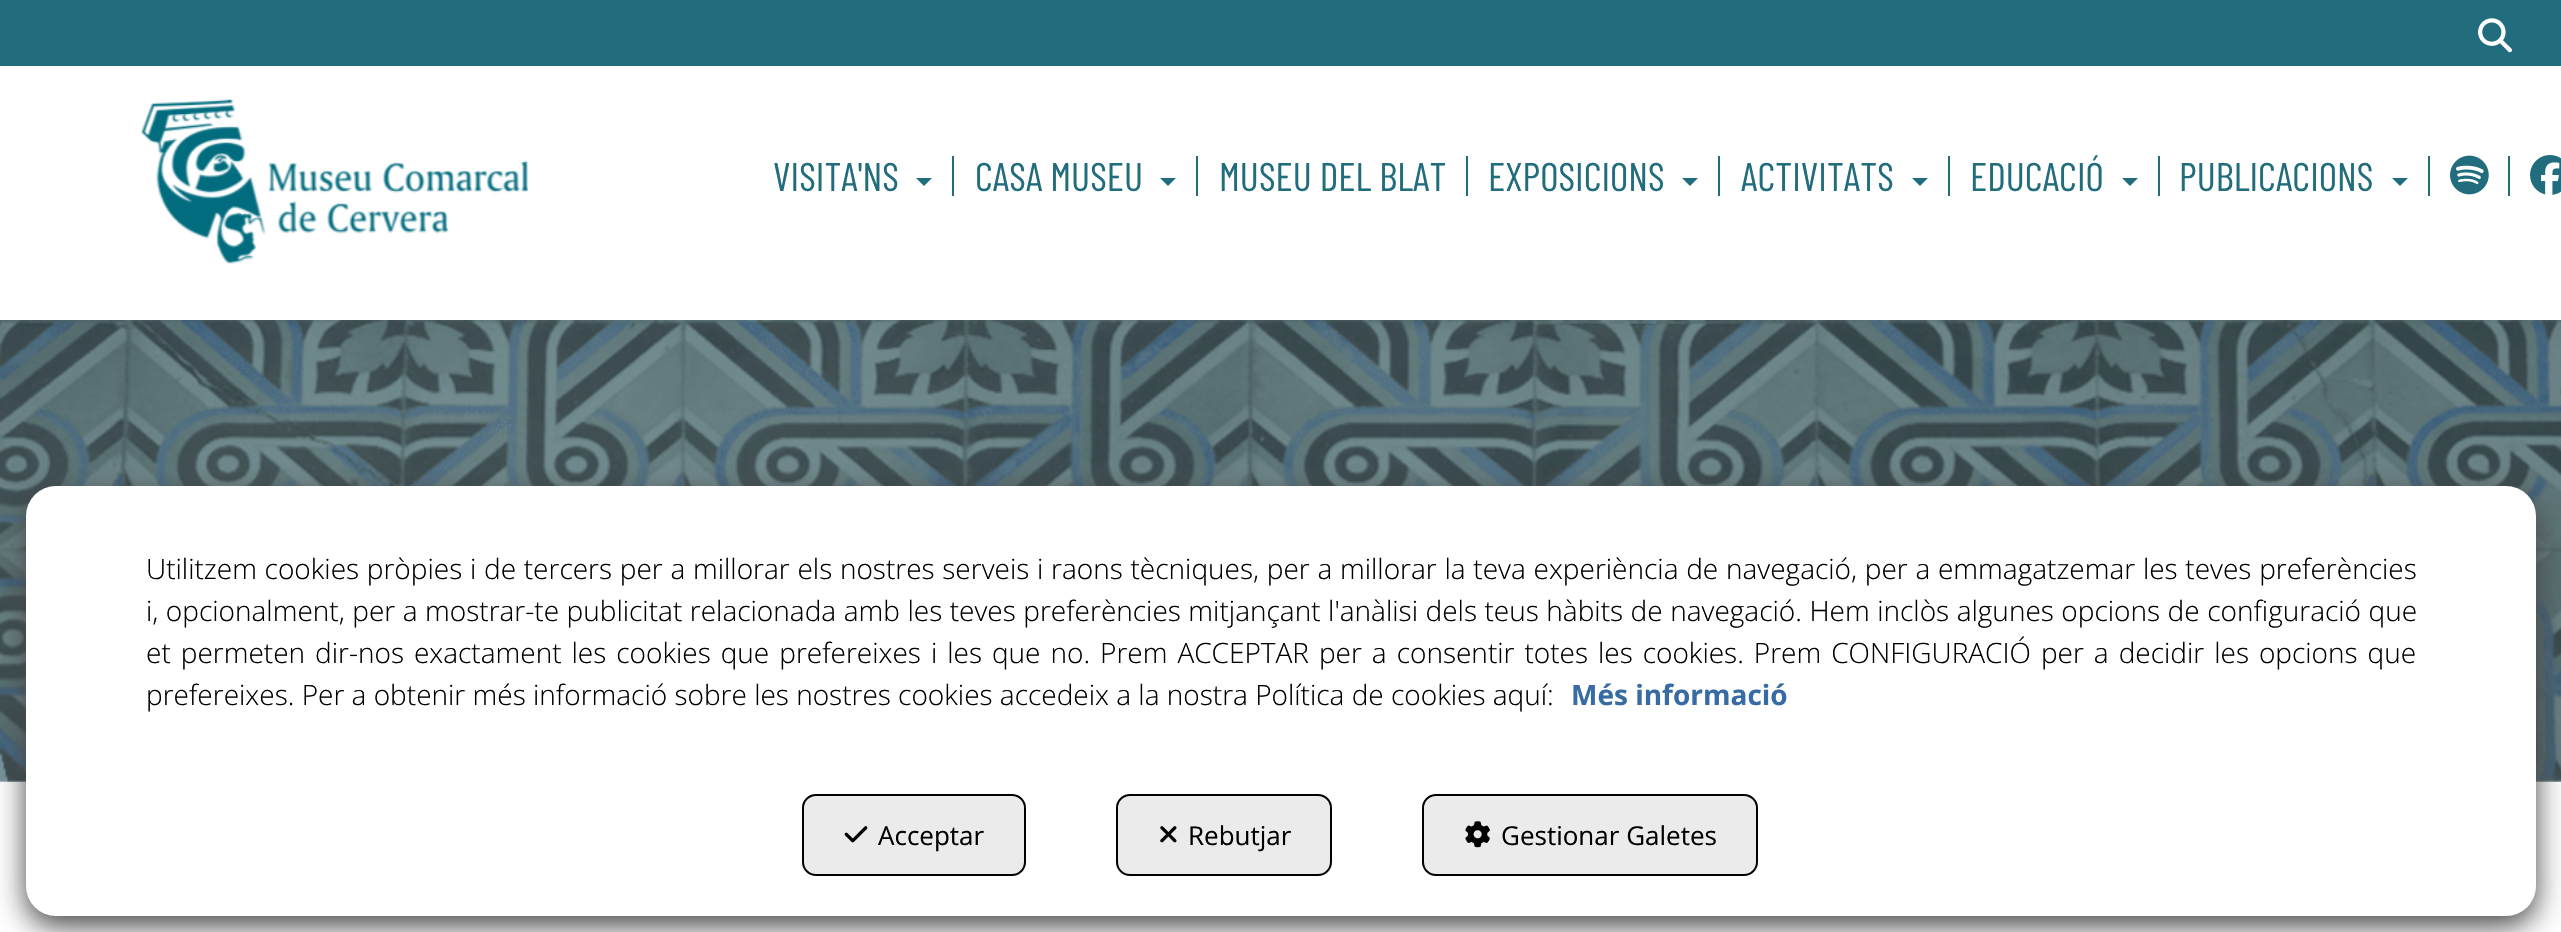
void draw(SkCanvas* canvas) {
    SkPaint paint;
    paint.setAntiAlias(true);
    auto spacedText = [&](const char* s, float x, float y, const SkFont& font, const SkPaint& ink, float letter, float word) {
        std::vector<SkGlyphID> glyphs(font.countText(s, strlen(s), SkTextEncoding::kUTF8));
        std::vector<float> xs(glyphs.size());
        font.textToGlyphs(s, strlen(s), SkTextEncoding::kUTF8, glyphs);
        font.getXPos(glyphs, xs, x);
        float extra = 0;
        for (size_t i = 0; i < glyphs.size(); i++) {
            xs[i] += extra;
            extra += letter + word * (glyphs[i] == font.unicharToGlyph(' '));
        }
        canvas->drawTextBlob(SkTextBlob::MakeFromPosHGlyphs(glyphs, xs, y, font), 0, 0, ink);
    };
    canvas->clear(0xFFFFFFFF);
    paint.setColor(0xFF216D7D);
    canvas->drawRect(SkRect::MakeXYWH(0, 0, 2561, 66), paint);
    canvas->drawImageRect(SkImages::DeferredFromEncodedData(SkData::MakeFromFileName("img1.png")), SkRect::MakeXYWH(2478, 18, 34, 35), SkSamplingOptions());
    canvas->drawImageRect(SkImages::DeferredFromEncodedData(SkData::MakeFromFileName("img2.png")), SkRect::MakeXYWH(141, 99, 387, 165), SkSamplingOptions());
    canvas->drawRect(SkRect::MakeXYWH(952, 156, 2, 40), paint);
    SkFont font1(fontMgr->matchFamilyStyle("Barlow Condensed", SkFontStyle::Normal()), 40);
    font1.setSubpixel(true);
    canvas->drawString("VISITA'NS", 773, 191, font1, paint);
    canvas->drawPath(SkPathBuilder().moveTo(916, 178).lineTo(932, 178).lineTo(924, 186).close().detach(), paint);
    canvas->drawRect(SkRect::MakeXYWH(1196, 156, 2, 40), paint);
    canvas->drawString("CASA MUSEU", 975, 191, font1, paint);
    canvas->drawPath(SkPathBuilder().moveTo(1160, 178).lineTo(1176, 178).lineTo(1168, 186).close().detach(), paint);
    canvas->drawRect(SkRect::MakeXYWH(1466, 156, 2, 40), paint);
    canvas->drawString("MUSEU DEL BLAT", 1219, 191, font1, paint);
    canvas->drawRect(SkRect::MakeXYWH(1718, 156, 2, 40), paint);
    canvas->drawString("EXPOSICIONS", 1488, 191, font1, paint);
    canvas->drawPath(SkPathBuilder().moveTo(1682, 178).lineTo(1698, 178).lineTo(1690, 186).close().detach(), paint);
    canvas->drawRect(SkRect::MakeXYWH(1948, 156, 2, 40), paint);
    canvas->drawString("ACTIVITATS", 1741, 191, font1, paint);
    canvas->drawPath(SkPathBuilder().moveTo(1912, 178).lineTo(1928, 178).lineTo(1920, 186).close().detach(), paint);
    canvas->drawRect(SkRect::MakeXYWH(2158, 156, 2, 40), paint);
    canvas->drawString("EDUCACIÓ", 1970, 191, font1, paint);
    canvas->drawPath(SkPathBuilder().moveTo(2122, 178).lineTo(2138, 178).lineTo(2130, 186).close().detach(), paint);
    canvas->drawRect(SkRect::MakeXYWH(2428, 156, 2, 40), paint);
    canvas->drawString("PUBLICACIONS", 2179, 191, font1, paint);
    canvas->drawPath(SkPathBuilder().moveTo(2392, 178).lineTo(2408, 178).lineTo(2400, 186).close().detach(), paint);
    canvas->drawRect(SkRect::MakeXYWH(2508, 156, 2, 40), paint);
    canvas->drawImageRect(SkImages::DeferredFromEncodedData(SkData::MakeFromFileName("img3.png")), SkRect::MakeXYWH(2450, 155, 39, 40), SkSamplingOptions());
    canvas->drawImageRect(SkImages::DeferredFromEncodedData(SkData::MakeFromFileName("img4.png")), SkRect::MakeXYWH(2530, 155, 31, 40), SkSamplingOptions());
    canvas->drawImageRect(SkImages::DeferredFromEncodedData(SkData::MakeFromFileName("img5.png")), SkRect::MakeXYWH(0, 320, 2561, 462), SkSamplingOptions());
    paint.setColor(0xFF454545);
    paint.setMaskFilter(SkMaskFilter::MakeBlur(kNormal_SkBlurStyle, 15));
    canvas->drawRoundRect(SkRect::MakeXYWH(26, 496, 2510, 430), 30, 30, paint);
    paint.setMaskFilter(nullptr);
    paint.setColor(0xFFFFFFFF);
    canvas->drawRoundRect(SkRect::MakeXYWH(26, 486, 2510, 430), 30, 30, paint);
    SkFont font2(fontMgr->matchFamilyStyle("Open Sans", SkFontStyle(300, SkFontStyle::kNormal_Width, SkFontStyle::kUpright_Slant)), 28);
    font2.setSubpixel(true);
    paint.setColor(0xFF000000);
    spacedText("Utilitzem cookies pròpies i de tercers per a millorar els nostres serveis i raons tècniques, per a millorar la teva experiència de navegació, per a emmagatzemar les teves preferències", 146, 579, font2, paint, 0, 0.45f);
    spacedText("i, opcionalment, per a mostrar-te publicitat relacionada amb les teves preferències mitjançant l'anàlisi dels teus hàbits de navegació. Hem inclòs algunes opcions de configuració que", 146, 621, font2, paint, 0, 0.25f);
    spacedText("et permeten dir-nos exactament les cookies que prefereixes i les que no. Prem ACCEPTAR per a consentir totes les cookies. Prem CONFIGURACIÓ per a decidir les opcions que", 146, 663, font2, paint, 0, 2.7f);
    canvas->drawString("prefereixes. Per a obtenir més informació sobre les nostres cookies accedeix a la nostra Política de cookies aquí:", 146, 705, font2, paint);
    SkFont font3(fontMgr->matchFamilyStyle("Open Sans", SkFontStyle::Bold()), 28);
    font3.setSubpixel(true);
    paint.setColor(0xFF376BA3);
    canvas->drawString("Més informació", 1571, 705, font3, paint);
    paint.setColor(0xFFEBEBEB);
    canvas->drawRoundRect(SkRect::MakeXYWH(803, 795, 222, 80), 13, 13, paint);
    paint.setStyle(SkPaint::kStroke_Style);
    paint.setStrokeWidth(2);
    paint.setColor(0xFF000000);
    canvas->drawRoundRect(SkRect::MakeXYWH(803, 795, 222, 80), 13, 13, paint);
    canvas->drawImageRect(SkImages::DeferredFromEncodedData(SkData::MakeFromFileName("img6.png")), SkRect::MakeXYWH(844, 826, 24, 17), SkSamplingOptions());
    SkFont font4(fontMgr->matchFamilyStyle("Open Sans", SkFontStyle::Normal()), 26);
    font4.setSubpixel(true);
    paint.setStyle(SkPaint::kFill_Style);
    canvas->drawString("Acceptar", 878, 845, font4, paint);
    paint.setColor(0xFFEBEBEB);
    canvas->drawRoundRect(SkRect::MakeXYWH(1117, 795, 214, 80), 13, 13, paint);
    paint.setStyle(SkPaint::kStroke_Style);
    paint.setColor(0xFF000000);
    canvas->drawRoundRect(SkRect::MakeXYWH(1117, 795, 214, 80), 13, 13, paint);
    canvas->drawImageRect(SkImages::DeferredFromEncodedData(SkData::MakeFromFileName("img7.png")), SkRect::MakeXYWH(1160, 826, 17, 17), SkSamplingOptions());
    paint.setStyle(SkPaint::kFill_Style);
    canvas->drawString("Rebutjar", 1188, 845, font4, paint);
    paint.setColor(0xFFEBEBEB);
    canvas->drawRoundRect(SkRect::MakeXYWH(1423, 795, 334, 80), 13, 13, paint);
    paint.setStyle(SkPaint::kStroke_Style);
    paint.setColor(0xFF000000);
    canvas->drawRoundRect(SkRect::MakeXYWH(1423, 795, 334, 80), 13, 13, paint);
    canvas->drawImageRect(SkImages::DeferredFromEncodedData(SkData::MakeFromFileName("img8.png")), SkRect::MakeXYWH(1465, 821, 25, 27), SkSamplingOptions());
    paint.setStyle(SkPaint::kFill_Style);
    canvas->drawString("Gestionar Galetes", 1501, 845, font4, paint);
}
